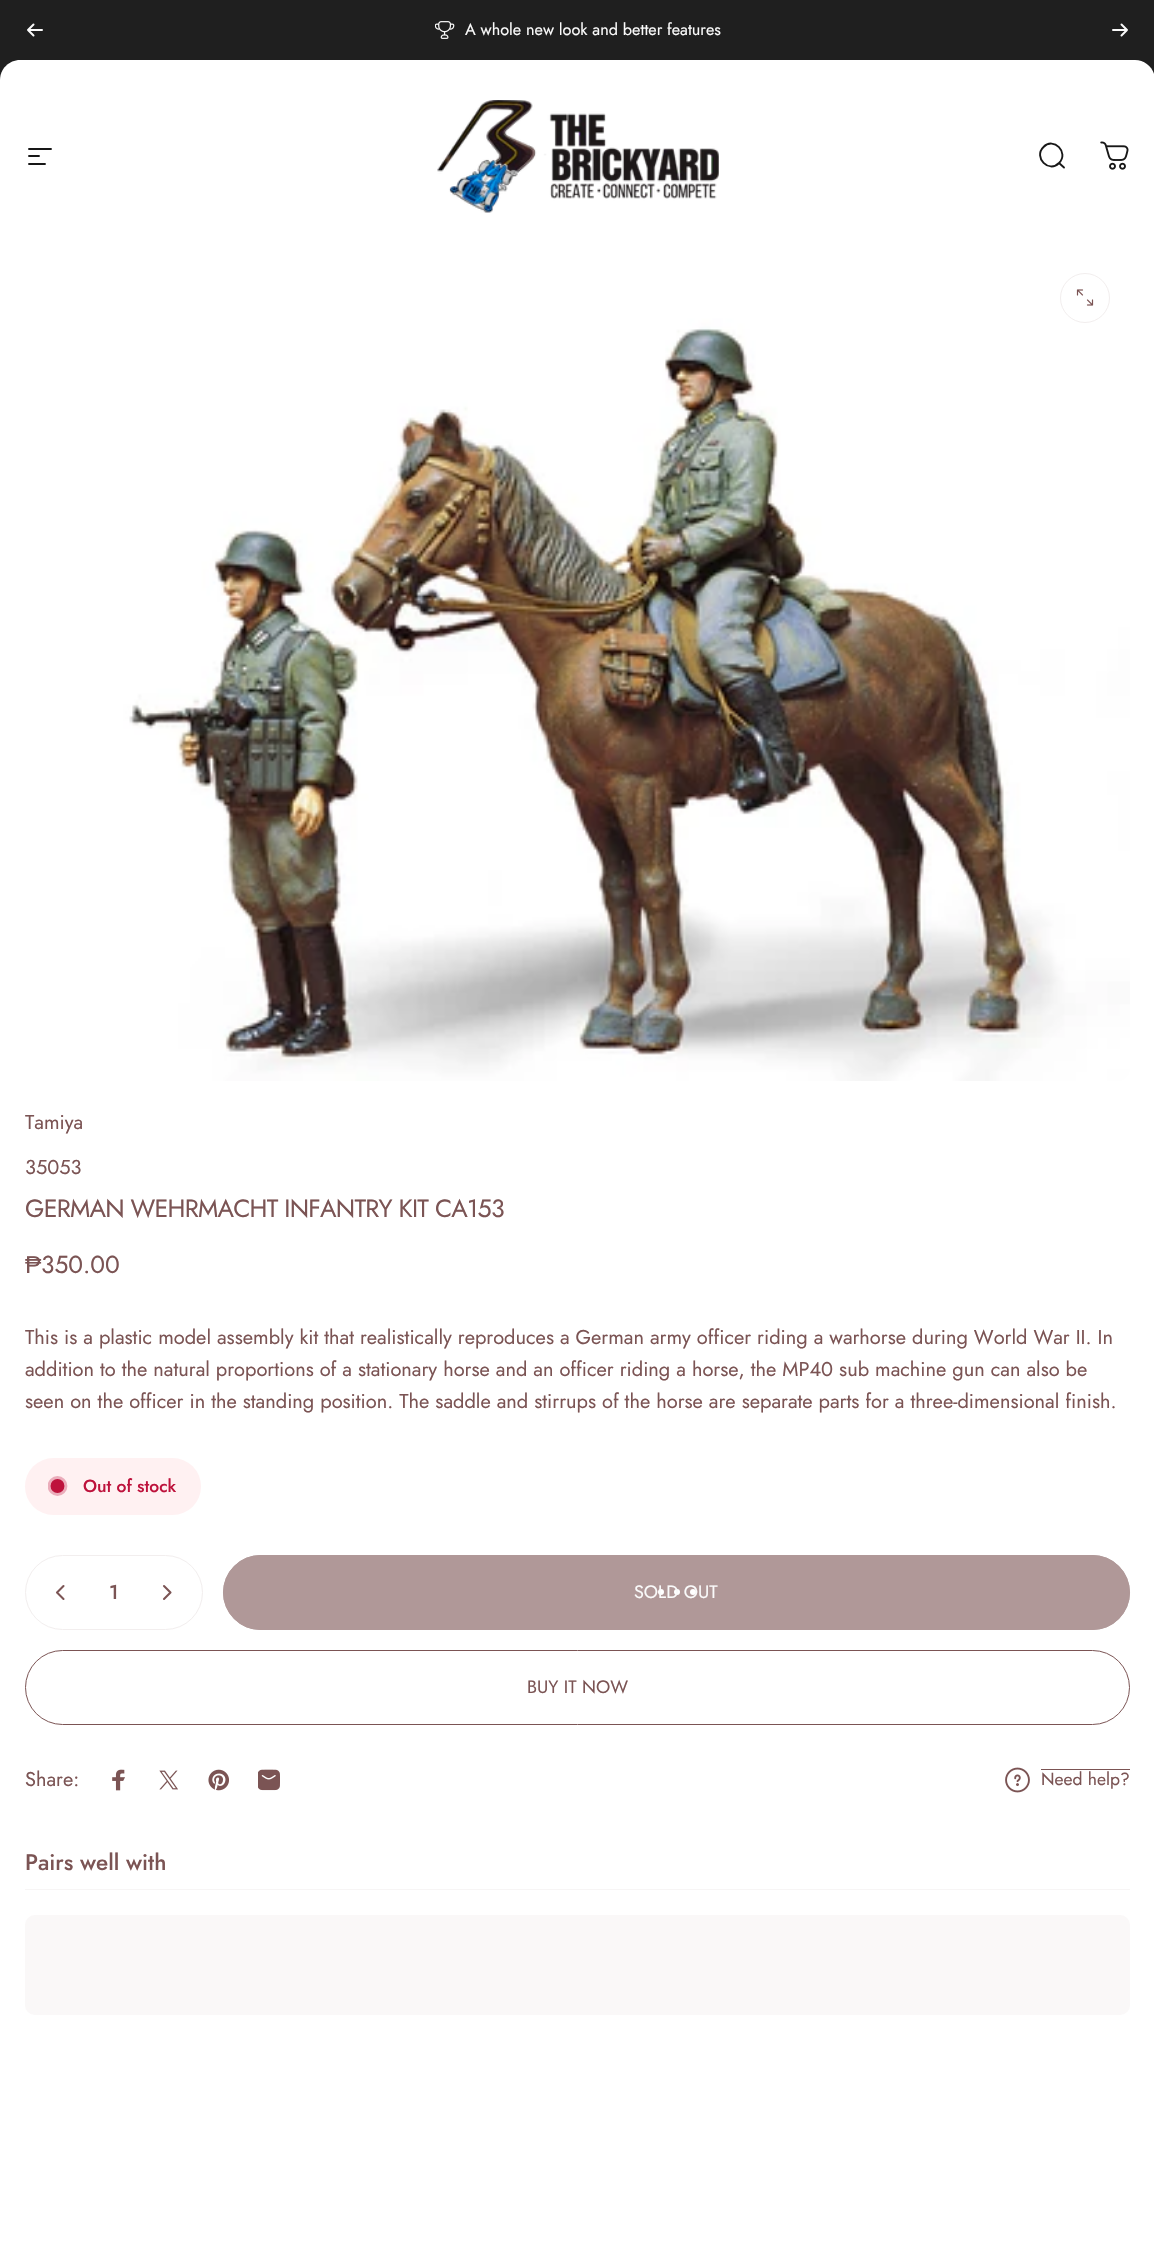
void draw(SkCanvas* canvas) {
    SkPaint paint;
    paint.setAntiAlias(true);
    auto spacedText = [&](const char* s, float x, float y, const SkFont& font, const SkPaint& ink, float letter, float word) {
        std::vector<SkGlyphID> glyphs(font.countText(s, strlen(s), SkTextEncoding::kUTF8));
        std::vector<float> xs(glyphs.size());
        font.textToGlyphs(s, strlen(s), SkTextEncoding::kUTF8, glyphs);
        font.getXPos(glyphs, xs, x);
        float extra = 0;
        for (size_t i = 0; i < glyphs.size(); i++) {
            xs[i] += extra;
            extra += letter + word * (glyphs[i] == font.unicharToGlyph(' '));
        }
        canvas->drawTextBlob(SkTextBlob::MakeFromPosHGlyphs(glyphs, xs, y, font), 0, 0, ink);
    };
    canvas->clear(0xFFFFFFFF);
    paint.setColor(0xFF1F1F1F);
    canvas->drawRect(SkRect::MakeXYWH(0, 0, 1154, 20), paint);
    canvas->drawPath(SkPathBuilder().moveTo(20, 0).lineTo(1135, 0).cubicTo(1146, 0, 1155, 9, 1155, 20).lineTo(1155, 80).lineTo(0, 80).lineTo(0, 20).cubicTo(0, 9, 9, 0, 20, 0).close().detach(), paint);
    paint.setStyle(SkPaint::kStroke_Style);
    paint.setStrokeWidth(2);
    paint.setStrokeCap(SkPaint::kRound_Cap);
    paint.setStrokeJoin(SkPaint::kRound_Join);
    paint.setColor(0xFFFAFAFA);
    canvas->drawPath(SkPathBuilder().moveTo(33.5f, 24.5f).lineTo(28, 30).moveTo(28, 30).lineTo(33.5f, 35.5f).moveTo(28, 30).lineTo(42, 30).detach(), paint);
    canvas->drawImageRect(SkImages::DeferredFromEncodedData(SkData::MakeFromFileName("img1.png")), SkRect::MakeXYWH(435, 21, 20, 18), SkSamplingOptions());
    SkFont font1(fontMgr->matchFamilyStyle("Jost", SkFontStyle::Normal()), 16.25f);
    font1.setSubpixel(true);
    paint.setStyle(SkPaint::kFill_Style);
    canvas->drawString("A whole new look and better features", 465, 35, font1, paint);
    paint.setStyle(SkPaint::kStroke_Style);
    canvas->drawPath(SkPathBuilder().moveTo(1113, 30).lineTo(1127, 30).moveTo(1127, 30).lineTo(1121.5f, 24.5f).moveTo(1127, 30).lineTo(1121.5f, 35.5f).detach(), paint);
    paint.setStyle(SkPaint::kFill_Style);
    paint.setColor(0xFFFFFFFF);
    canvas->drawPath(SkPathBuilder().moveTo(20, 60).lineTo(1135, 60).cubicTo(1146, 60, 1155, 69, 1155, 80).lineTo(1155, 253).lineTo(0, 253).lineTo(0, 80).cubicTo(0, 69, 9, 60, 20, 60).close().detach(), paint);
    paint.setStyle(SkPaint::kStroke_Style);
    paint.setStrokeWidth(1.9f);
    paint.setStrokeJoin(SkPaint::kMiter_Join);
    paint.setColor(0xFF171717);
    canvas->drawPath(SkPathBuilder().moveTo(29, 149).lineTo(51, 149).moveTo(29, 156).lineTo(39, 156).moveTo(29, 164).lineTo(45, 164).detach(), paint);
    canvas->drawImageRect(SkImages::DeferredFromEncodedData(SkData::MakeFromFileName("img2.png")), SkRect::MakeXYWH(437, 100, 282, 113), SkSamplingOptions());
    canvas->drawPath(SkPathBuilder().moveTo(1064, 167.5f).lineTo(1059, 163).moveTo(1059, 163).cubicTo(1069.5f, 152.5f, 1053.5f, 136.5f, 1043.5f, 147).cubicTo(1033, 157.5f, 1049, 173.5f, 1059, 163).close().detach(), paint);
    canvas->drawImageRect(SkImages::DeferredFromEncodedData(SkData::MakeFromFileName("img3.png")), SkRect::MakeXYWH(1100, 141, 29, 29), SkSamplingOptions());
    canvas->drawImageRect(SkImages::DeferredFromEncodedData(SkData::MakeFromFileName("img4.png")), SkRect::MakeXYWH(25, 253, 1105, 828), SkSamplingOptions());
    paint.setStrokeWidth(1);
    paint.setStrokeCap(SkPaint::kButt_Cap);
    paint.setColor(0xFFF2EEEE);
    canvas->drawCircle(1085, 298, 24.5f, paint);
    canvas->drawImageRect(SkImages::DeferredFromEncodedData(SkData::MakeFromFileName("img5.png")), SkRect::MakeXYWH(1076, 289, 18, 17), SkSamplingOptions());
    SkFont font2(fontMgr->matchFamilyStyle("Jost", SkFontStyle::Normal()), 20);
    font2.setSubpixel(true);
    paint.setStyle(SkPaint::kFill_Style);
    paint.setColor(0xFF7B5454);
    canvas->drawString("Tamiya", 25, 1129, font2, paint);
    canvas->drawString("35053", 25, 1174, font2, paint);
    SkFont font3(fontMgr->matchFamilyStyle("Jost", SkFontStyle::Normal()), 25);
    font3.setSubpixel(true);
    spacedText("GERMAN WEHRMACHT INFANTRY KIT CA153", 25, 1217, font3, paint, -0.75f, 0);
    SkFont font4(fontMgr->matchFamilyStyle("Liberation Sans", SkFontStyle::Normal()), 24.5f);
    font4.setSubpixel(true);
    canvas->drawString("₱", 25, 1273, font4, paint);
    SkFont font5(fontMgr->matchFamilyStyle("Jost", SkFontStyle::Normal()), 24.5f);
    font5.setSubpixel(true);
    canvas->drawString("350.00", 41, 1273, font5, paint);
    canvas->drawString("This is a plastic model assembly kit that realistically reproduces a German army officer riding a warhorse during World War II. In", 25, 1344, font2, paint);
    canvas->drawString("addition to the natural proportions of a stationary horse and an officer riding a horse, the MP40 sub machine gun can also be", 25, 1376, font2, paint);
    canvas->drawString("seen on the officer in the standing position. The saddle and stirrups of the horse are separate parts for a three-dimensional finish.", 25, 1408, font2, paint);
    paint.setColor(0xFFFFF1F2);
    canvas->drawRoundRect(SkRect::MakeXYWH(25, 1458, 176, 57), 28.5f, 28.5f, paint);
    paint.setColor(0xFFBE123C);
    canvas->drawCircle(57.5f, 1486, 6, paint);
    paint.setStyle(SkPaint::kStroke_Style);
    paint.setStrokeWidth(1.9f);
    canvas->drawCircle(57.5f, 1486, 6, paint);
    canvas->save();
    canvas->clipRect(SkRect::MakeXYWH(48, 1476, 20, 20));
    paint.setStrokeWidth(3.8f);
    paint.setColor(0x4DBE123C);
    canvas->drawCircle(57.5f, 1486, 8, paint);
    canvas->restore();
    SkFont font6(fontMgr->matchFamilyStyle("Jost", SkFontStyle(500, SkFontStyle::kNormal_Width, SkFontStyle::kUpright_Slant)), 17.5f);
    font6.setSubpixel(true);
    paint.setStyle(SkPaint::kFill_Style);
    paint.setColor(0xFFBE123C);
    canvas->drawString("Out of stock", 83, 1492, font6, paint);
    paint.setStyle(SkPaint::kStroke_Style);
    paint.setStrokeWidth(1);
    paint.setColor(0xFFF2EEEE);
    canvas->drawRoundRect(SkRect::MakeXYWH(25.5f, 1555.5f, 177, 74), 37, 37, paint);
    paint.setStrokeWidth(2.1f);
    paint.setStrokeCap(SkPaint::kRound_Cap);
    paint.setStrokeJoin(SkPaint::kRound_Join);
    paint.setColor(0xFF7B5454);
    canvas->drawPath(SkPathBuilder().moveTo(63.5f, 1586).lineTo(57, 1592.5f).lineTo(63.5f, 1599).detach(), paint);
    SkFont font7(fontMgr->matchFamilyStyle("Jost", SkFontStyle(500, SkFontStyle::kNormal_Width, SkFontStyle::kUpright_Slant)), 20);
    font7.setSubpixel(true);
    paint.setStyle(SkPaint::kFill_Style);
    canvas->drawString("1", 109, 1599, font7, paint);
    paint.setStyle(SkPaint::kStroke_Style);
    canvas->drawPath(SkPathBuilder().moveTo(164, 1586).lineTo(170.5f, 1592.5f).lineTo(164, 1599).detach(), paint);
    paint.setStyle(SkPaint::kFill_Style);
    paint.setColor(0xFFB09898);
    canvas->drawRoundRect(SkRect::MakeXYWH(223, 1555, 907, 75), 37.5f, 37.5f, paint);
    paint.setColor(0xFFFFFFFF);
    canvas->drawCircle(661, 1592, 3, paint);
    canvas->drawCircle(677, 1592, 3, paint);
    canvas->drawCircle(693, 1592, 3, paint);
    paint.setStyle(SkPaint::kStroke_Style);
    paint.setStrokeWidth(1);
    paint.setStrokeCap(SkPaint::kButt_Cap);
    paint.setStrokeJoin(SkPaint::kMiter_Join);
    paint.setColor(0xFFB09898);
    canvas->drawRoundRect(SkRect::MakeXYWH(223.5f, 1555.5f, 906, 74), 37, 37, paint);
    SkFont font8(fontMgr->matchFamilyStyle("Jost", SkFontStyle::Normal()), 18);
    font8.setSubpixel(true);
    paint.setStyle(SkPaint::kFill_Style);
    paint.setColor(0xFFFAFAFA);
    canvas->drawString("SOLD OUT", 634, 1598, font8, paint);
    paint.setStyle(SkPaint::kStroke_Style);
    paint.setColor(0xFF7B5454);
    canvas->drawRoundRect(SkRect::MakeXYWH(25.5f, 1650.5f, 1104, 74), 37, 37, paint);
    paint.setStyle(SkPaint::kFill_Style);
    canvas->drawString("BUY IT NOW", 527, 1693, font8, paint);
    canvas->drawString("Share:", 25, 1786, font2, paint);
    canvas->drawImageRect(SkImages::DeferredFromEncodedData(SkData::MakeFromFileName("img6.png")), SkRect::MakeXYWH(112, 1769, 13, 22), SkSamplingOptions());
    canvas->drawImageRect(SkImages::DeferredFromEncodedData(SkData::MakeFromFileName("img7.png")), SkRect::MakeXYWH(159, 1770, 19, 20), SkSamplingOptions());
    canvas->drawImageRect(SkImages::DeferredFromEncodedData(SkData::MakeFromFileName("img8.png")), SkRect::MakeXYWH(208, 1769, 21, 22), SkSamplingOptions());
    canvas->drawImageRect(SkImages::DeferredFromEncodedData(SkData::MakeFromFileName("img9.png")), SkRect::MakeXYWH(258, 1769, 22, 22), SkSamplingOptions());
    canvas->drawImageRect(SkImages::DeferredFromEncodedData(SkData::MakeFromFileName("img10.png")), SkRect::MakeXYWH(1005, 1767, 25, 26), SkSamplingOptions());
    canvas->drawRect(SkRect::MakeXYWH(1041, 1769, 89, 1), paint);
    SkFont font9(fontMgr->matchFamilyStyle("Jost", SkFontStyle::Normal()), 17.5f);
    font9.setSubpixel(true);
    canvas->drawString("Need help?", 1041, 1785, font9, paint);
    paint.setColor(0xFFF7F5F5);
    canvas->drawRect(SkRect::MakeXYWH(25, 1889, 1105, 1), paint);
    SkFont font10(fontMgr->matchFamilyStyle("Jost", SkFontStyle(500, SkFontStyle::kNormal_Width, SkFontStyle::kUpright_Slant)), 22.5f);
    font10.setSubpixel(true);
    paint.setColor(0xFF7B5454);
    canvas->drawString("Pairs well with", 25, 1870, font10, paint);
    {
        const SkColor colors[] = {0xFFFAF8F8, 0xFFF0ECEC, 0xFFFAF8F8};
        const float stops[] = {0.4f, 0.63f, 0.79f};
        const SkPoint ends[] = {{83, 1586}, {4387, 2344}};
        paint.setShader(SkGradientShader::MakeLinear(ends, colors, stops, 3, SkTileMode::kClamp));
        paint.setAlpha(255);
    }
    canvas->drawRoundRect(SkRect::MakeXYWH(25, 1915, 1105, 100), 10, 10, paint);
}
